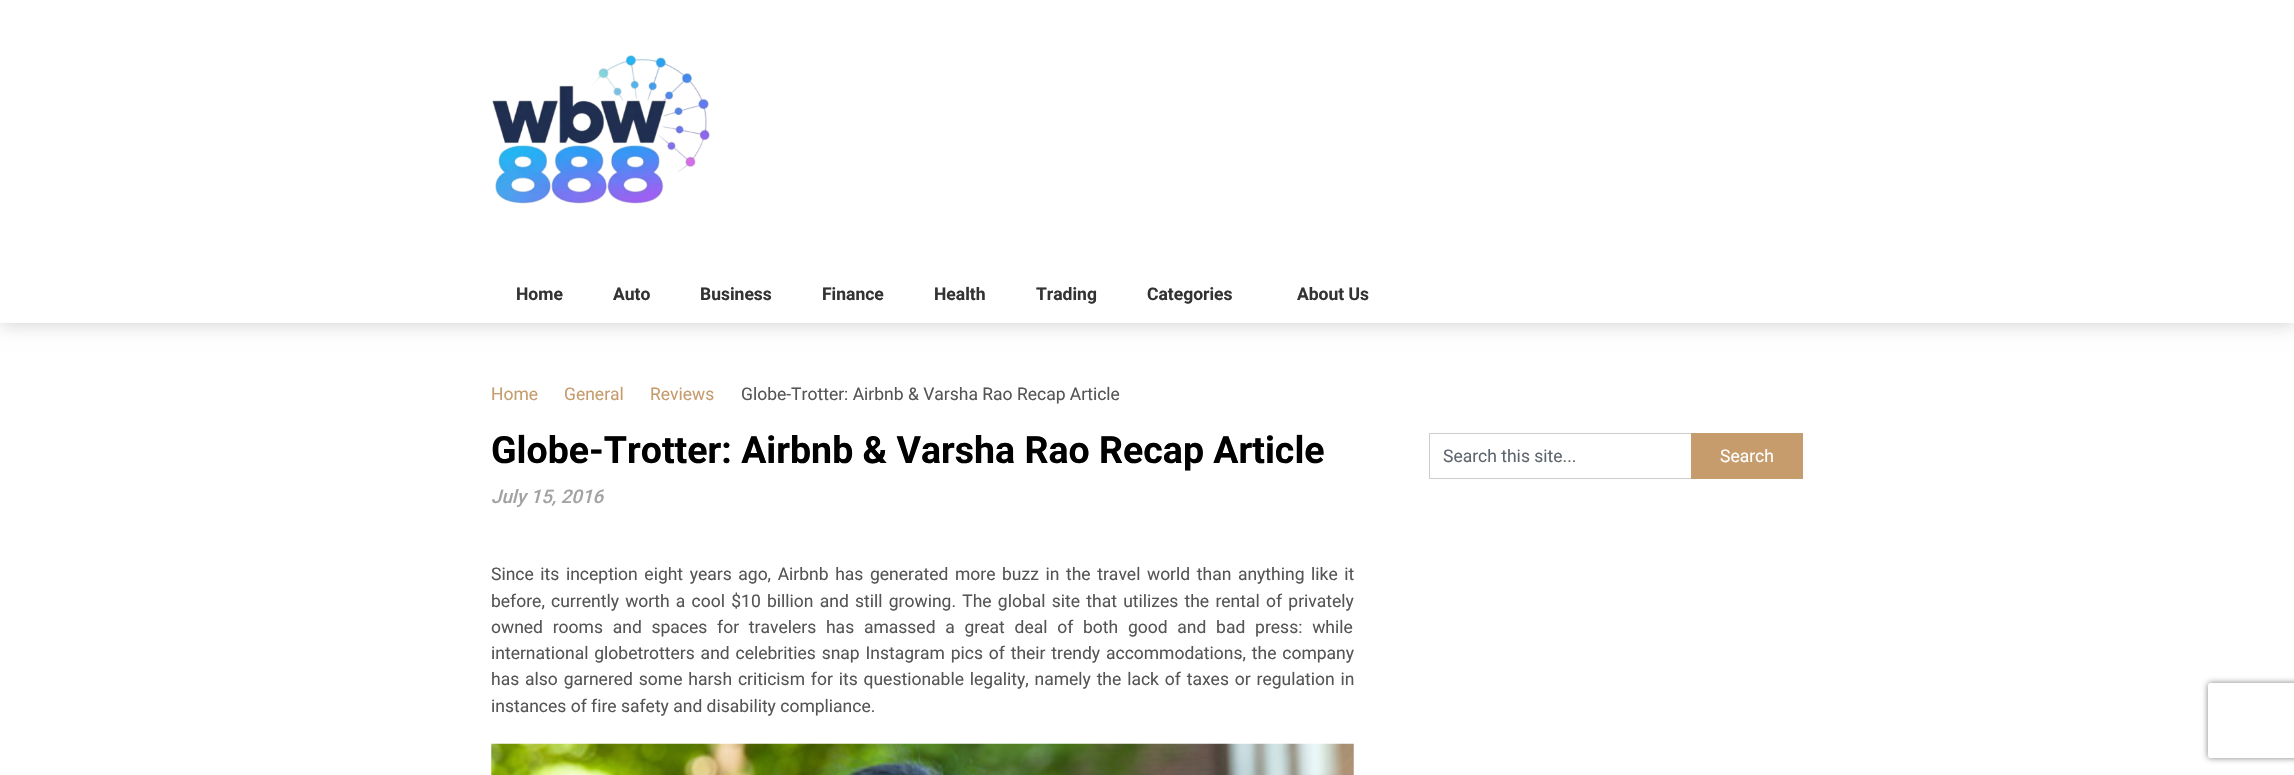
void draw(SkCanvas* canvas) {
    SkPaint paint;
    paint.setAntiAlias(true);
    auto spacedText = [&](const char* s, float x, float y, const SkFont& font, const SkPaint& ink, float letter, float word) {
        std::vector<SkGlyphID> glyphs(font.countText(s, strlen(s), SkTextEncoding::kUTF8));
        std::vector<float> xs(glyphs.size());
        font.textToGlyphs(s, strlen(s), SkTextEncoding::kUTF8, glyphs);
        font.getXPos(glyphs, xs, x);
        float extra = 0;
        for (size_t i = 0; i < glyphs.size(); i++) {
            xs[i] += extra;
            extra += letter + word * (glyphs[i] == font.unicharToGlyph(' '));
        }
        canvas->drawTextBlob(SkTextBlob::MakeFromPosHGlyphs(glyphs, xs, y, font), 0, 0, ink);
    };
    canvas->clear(0xFFFFFFFF);
    paint.setColor(0x33000000);
    paint.setMaskFilter(SkMaskFilter::MakeBlur(kNormal_SkBlurStyle, 9.5f));
    canvas->drawRect(SkRect::MakeXYWH(0, 0, 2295, 323), paint);
    paint.setMaskFilter(nullptr);
    paint.setColor(0xFFFFFFFF);
    canvas->drawRect(SkRect::MakeXYWH(0, 0, 2294, 323), paint);
    canvas->drawImageRect(SkImages::DeferredFromEncodedData(SkData::MakeFromFileName("img1.png")), SkRect::MakeXYWH(492, 55, 218, 149), SkSamplingOptions());
    SkFont font1(fontMgr->matchFamilyStyle("Roboto", SkFontStyle::Bold()), 17.5f);
    font1.setSubpixel(true);
    paint.setColor(0xFF333333);
    canvas->drawString("Home", 516, 300, font1, paint);
    canvas->drawString("Auto", 613, 300, font1, paint);
    canvas->drawString("Business", 700, 300, font1, paint);
    canvas->drawString("Finance", 822, 300, font1, paint);
    canvas->drawString("Health", 934, 300, font1, paint);
    canvas->drawString("Trading", 1036, 300, font1, paint);
    canvas->drawString("Categories", 1147, 300, font1, paint);
    canvas->drawString("About Us", 1297, 300, font1, paint);
    SkFont font2(fontMgr->matchFamilyStyle("Roboto", SkFontStyle::Normal()), 17.5f);
    font2.setSubpixel(true);
    paint.setColor(0xFFC69C6D);
    canvas->drawString("Home", 491, 400, font2, paint);
    canvas->drawString("General", 564, 400, font2, paint);
    canvas->drawString("Reviews", 650, 400, font2, paint);
    paint.setColor(0xFF555555);
    canvas->drawString("Globe-Trotter: Airbnb & Varsha Rao Recap Article", 741, 400, font2, paint);
    SkFont font3(fontMgr->matchFamilyStyle("Roboto", SkFontStyle::Bold()), 37.5f);
    font3.setSubpixel(true);
    paint.setColor(0xFF000000);
    canvas->drawString("Globe-Trotter: Airbnb & Varsha Rao Recap Article", 491, 463, font3, paint);
    SkFont font4(fontMgr->matchFamilyStyle("Roboto", SkFontStyle(500, SkFontStyle::kNormal_Width, SkFontStyle::kItalic_Slant)), 18.75f);
    font4.setSubpixel(true);
    paint.setColor(0xFFA2A2A2);
    canvas->drawString("July 15, 2016", 491, 503, font4, paint);
    paint.setColor(0xFF555555);
    spacedText("Since its inception eight years ago, Airbnb has generated more buzz in the travel world than anything like it", 491, 580, font2, paint, 0, 2.25f);
    spacedText("before, currently worth a cool $10 billion and still growing. The global site that utilizes the rental of privately", 491, 607, font2, paint, 0, 1.9f);
    spacedText("owned rooms and spaces for travelers has amassed a great deal of both good and bad press: while", 491, 633, font2, paint, 0, 5.4f);
    spacedText("international globetrotters and celebrities snap Instagram pics of their trendy accommodations, the company", 491, 659, font2, paint, 0, 1.5f);
    spacedText("has also garnered some harsh criticism for its questionable legality, namely the lack of taxes or regulation in", 491, 685, font2, paint, 0, 1.5f);
    canvas->drawString("instances of fire safety and disability compliance.", 491, 712, font2, paint);
    canvas->drawImageRect(SkImages::DeferredFromEncodedData(SkData::MakeFromFileName("img2.png")), SkRect::MakeXYWH(491, 743, 863, 32), SkSamplingOptions());
    paint.setColor(0xFFCCCCCC);
    canvas->drawRect(SkRect::MakeXYWH(1429, 433, 262, 1), paint);
    canvas->drawRect(SkRect::MakeXYWH(1429, 478, 262, 1), paint);
    canvas->drawRect(SkRect::MakeXYWH(1429, 433, 1, 46), paint);
    paint.setColor(0xFF5E656D);
    canvas->drawString("Search this site...", 1443, 462, font2, paint);
    paint.setColor(0xFFC69C6D);
    canvas->drawRect(SkRect::MakeXYWH(1691, 433, 112, 46), paint);
    paint.setColor(0xFFFFFFFF);
    canvas->drawString("Search", 1720, 462, font2, paint);
    canvas->save();
    canvas->clipPath(SkPathBuilder(SkPathFillType::kEvenOdd).moveTo(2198, 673).lineTo(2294, 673).lineTo(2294, 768).lineTo(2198, 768).close().moveTo(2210.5f, 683).lineTo(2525.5f, 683).cubicTo(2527, 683, 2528, 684, 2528, 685.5f).lineTo(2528, 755.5f).cubicTo(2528, 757, 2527, 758, 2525.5f, 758).lineTo(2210.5f, 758).cubicTo(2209, 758, 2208, 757, 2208, 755.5f).lineTo(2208, 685.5f).cubicTo(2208, 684, 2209, 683, 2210.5f, 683).close().detach(), true);
    paint.setColor(0xFF808080);
    paint.setMaskFilter(SkMaskFilter::MakeBlur(kNormal_SkBlurStyle, 3));
    canvas->drawRoundRect(SkRect::MakeXYWH(2208, 683, 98, 75), 2.5f, 2.5f, paint);
    paint.setMaskFilter(nullptr);
    canvas->restore();
}
